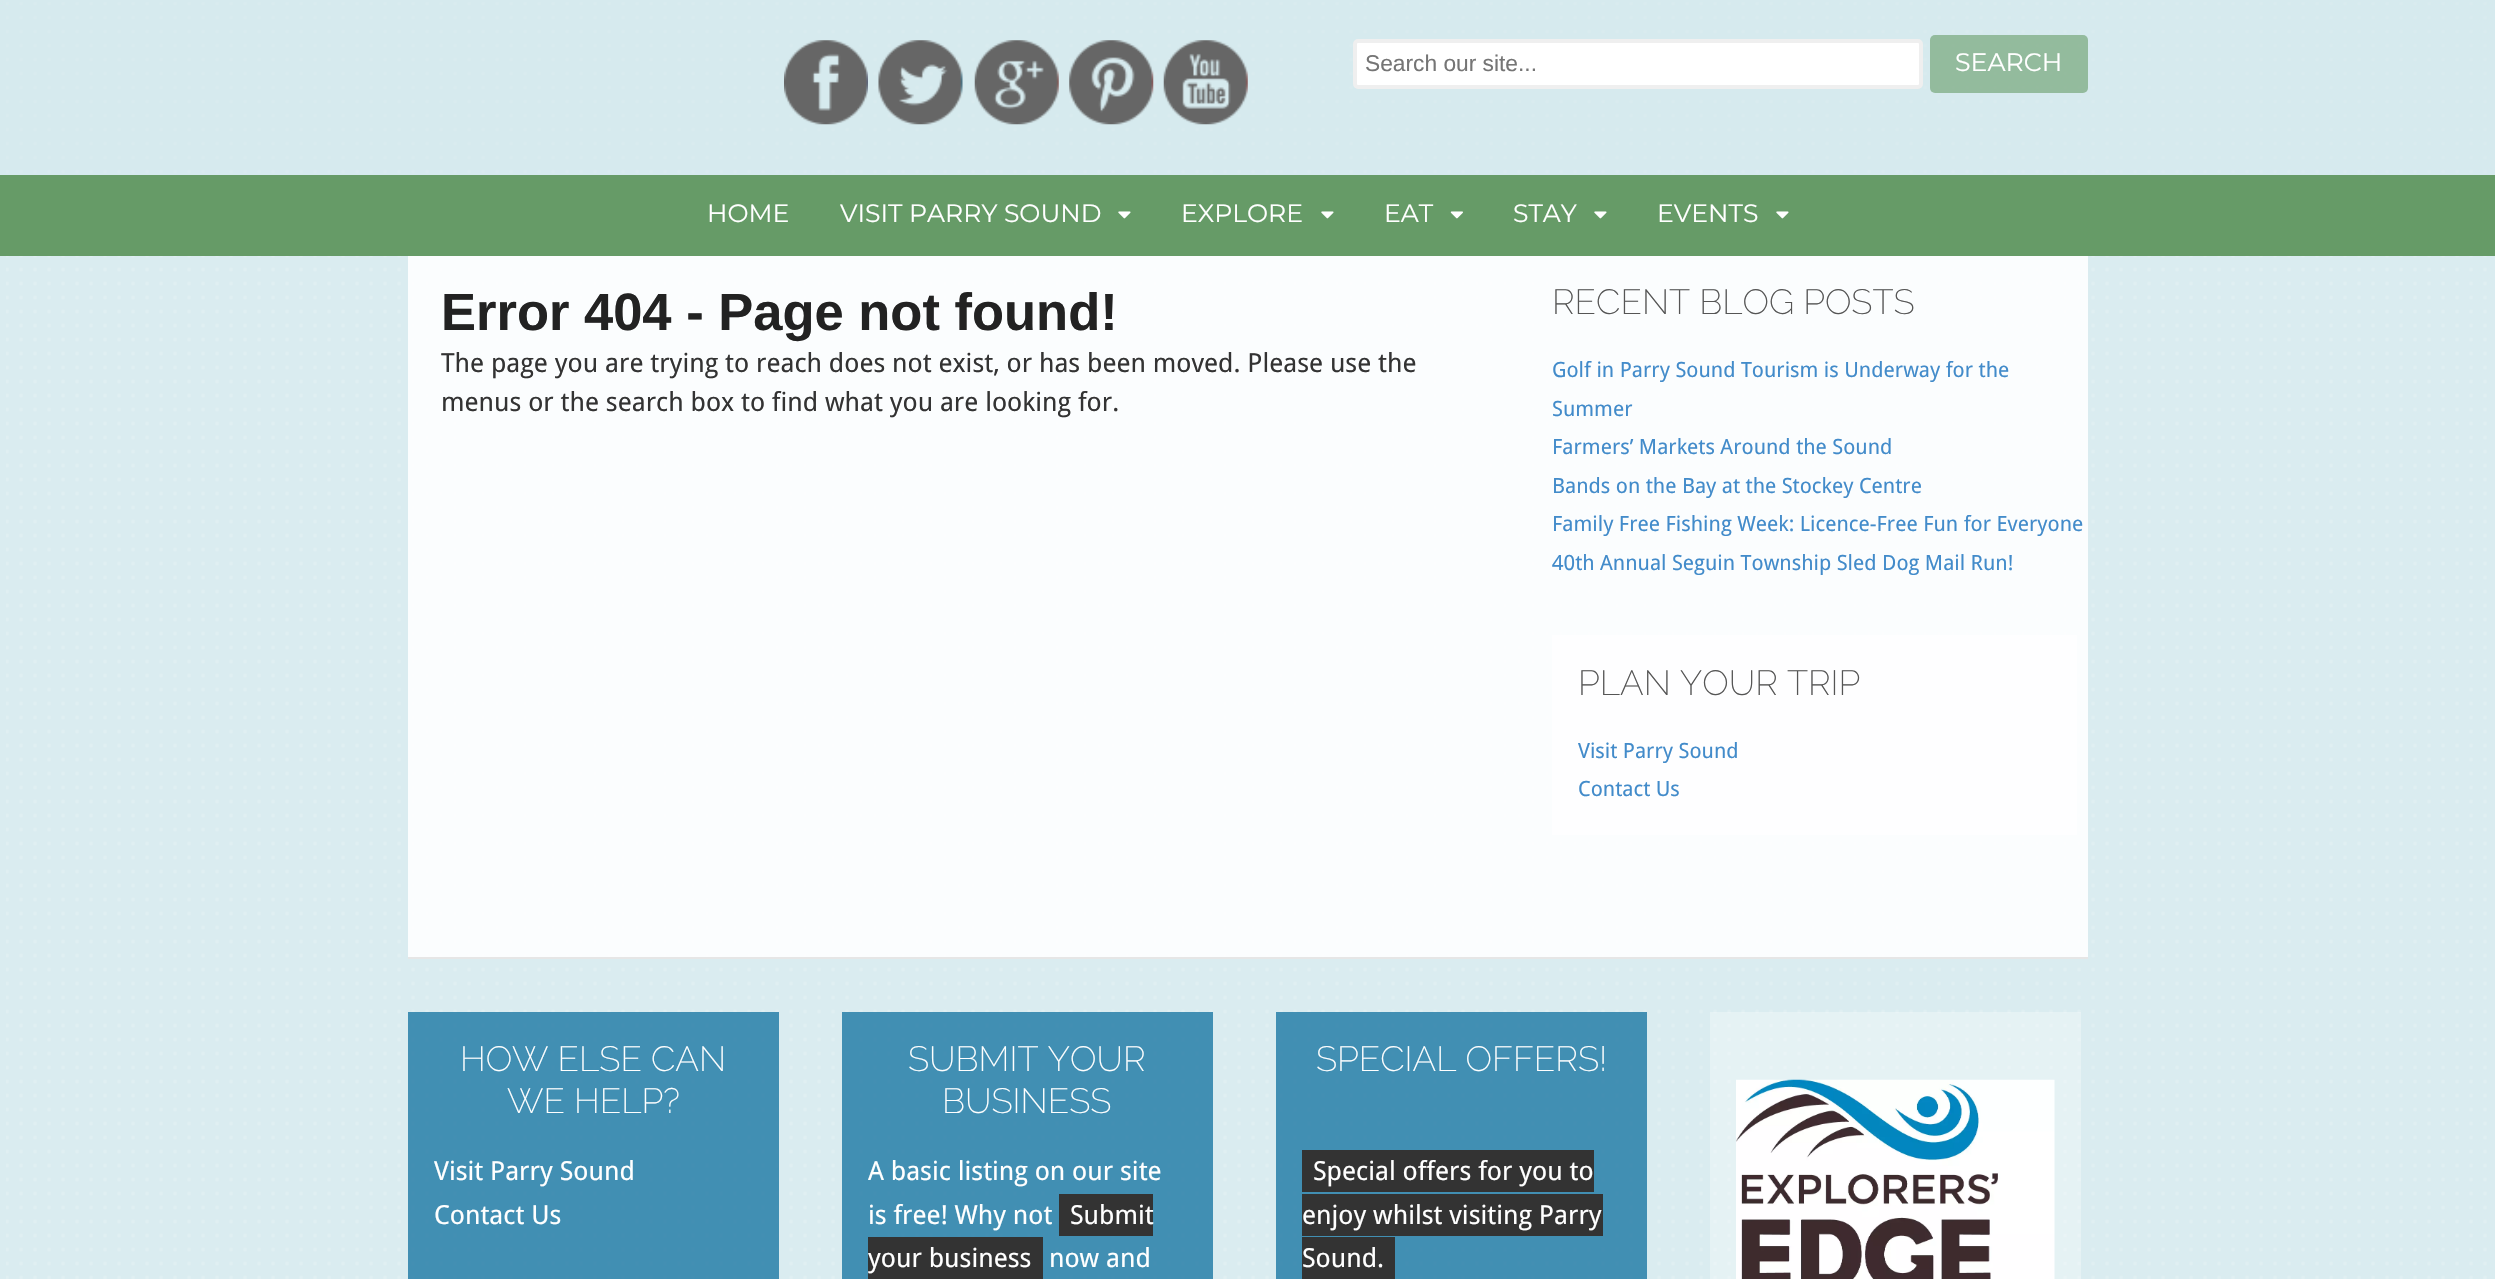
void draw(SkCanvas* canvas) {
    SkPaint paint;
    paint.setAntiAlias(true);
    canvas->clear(0xFFDAECF0);
    canvas->drawImageRect(SkImages::DeferredFromEncodedData(SkData::MakeFromFileName("img1.png")), SkRect::MakeXYWH(6, 2, 2481, 1277), SkSamplingOptions());
    paint.setColor(0x80D1E7EC);
    canvas->drawRect(SkRect::MakeXYWH(0, 0, 2495, 175), paint);
    canvas->drawImageRect(SkImages::DeferredFromEncodedData(SkData::MakeFromFileName("img2.png")), SkRect::MakeXYWH(784, 40, 84, 85), SkSamplingOptions());
    canvas->drawImageRect(SkImages::DeferredFromEncodedData(SkData::MakeFromFileName("img3.png")), SkRect::MakeXYWH(878, 40, 85, 85), SkSamplingOptions());
    canvas->drawImageRect(SkImages::DeferredFromEncodedData(SkData::MakeFromFileName("img4.png")), SkRect::MakeXYWH(974, 40, 85, 85), SkSamplingOptions());
    canvas->drawImageRect(SkImages::DeferredFromEncodedData(SkData::MakeFromFileName("img5.png")), SkRect::MakeXYWH(1069, 40, 85, 85), SkSamplingOptions());
    canvas->drawImageRect(SkImages::DeferredFromEncodedData(SkData::MakeFromFileName("img6.png")), SkRect::MakeXYWH(1163, 40, 85, 85), SkSamplingOptions());
    paint.setColor(0xFFFFFFFF);
    canvas->drawRoundRect(SkRect::MakeXYWH(1355, 41, 566, 46), 3, 3, paint);
    paint.setStyle(SkPaint::kStroke_Style);
    paint.setStrokeWidth(4);
    paint.setColor(0xFFEFEFEF);
    canvas->drawRoundRect(SkRect::MakeXYWH(1355, 41, 566, 46), 3, 3, paint);
    SkFont font1(fontMgr->matchFamilyStyle("Liberation Sans", SkFontStyle::Normal()), 22.75f);
    font1.setSubpixel(true);
    paint.setStyle(SkPaint::kFill_Style);
    paint.setColor(0xFF757575);
    canvas->drawString("Search our site...", 1365, 71, font1, paint);
    paint.setColor(0x99669B67);
    canvas->drawRoundRect(SkRect::MakeXYWH(1930, 35, 158, 58), 5, 5, paint);
    SkFont font2(fontMgr->matchFamilyStyle("Montserrat", SkFontStyle::Normal()), 25.25f);
    font2.setSubpixel(true);
    paint.setColor(0xFFFFFFFF);
    canvas->drawString("SEARCH", 1955, 71, font2, paint);
    paint.setColor(0xFF669B67);
    canvas->drawRect(SkRect::MakeXYWH(0, 175, 2495, 81), paint);
    SkFont font3(fontMgr->matchFamilyStyle("Montserrat", SkFontStyle::Normal()), 25.1f);
    font3.setSubpixel(true);
    paint.setColor(0xFFFFFFFF);
    canvas->drawString("HOME", 707, 222, font3, paint);
    canvas->drawString("VISIT PARRY SOUND", 840, 222, font3, paint);
    canvas->drawImageRect(SkImages::DeferredFromEncodedData(SkData::MakeFromFileName("img7.png")), SkRect::MakeXYWH(1118, 211, 13, 8), SkSamplingOptions());
    canvas->drawString("EXPLORE", 1181, 222, font3, paint);
    canvas->drawImageRect(SkImages::DeferredFromEncodedData(SkData::MakeFromFileName("img7.png")), SkRect::MakeXYWH(1321, 211, 13, 8), SkSamplingOptions());
    canvas->drawString("EAT", 1384, 222, font3, paint);
    canvas->drawImageRect(SkImages::DeferredFromEncodedData(SkData::MakeFromFileName("img8.png")), SkRect::MakeXYWH(1450, 211, 13, 8), SkSamplingOptions());
    canvas->drawString("STAY", 1513, 222, font3, paint);
    canvas->drawImageRect(SkImages::DeferredFromEncodedData(SkData::MakeFromFileName("img7.png")), SkRect::MakeXYWH(1594, 211, 13, 8), SkSamplingOptions());
    canvas->drawString("EVENTS", 1657, 222, font3, paint);
    canvas->drawImageRect(SkImages::DeferredFromEncodedData(SkData::MakeFromFileName("img7.png")), SkRect::MakeXYWH(1776, 211, 13, 8), SkSamplingOptions());
    paint.setColor(0xE0FFFFFF);
    canvas->drawRect(SkRect::MakeXYWH(408, 256, 1680, 701), paint);
    SkFont font4(fontMgr->matchFamilyStyle("Liberation Sans", SkFontStyle::Bold()), 52.5f);
    font4.setSubpixel(true);
    paint.setColor(0xFF222222);
    canvas->drawString("Error 404 - Page not found!", 441, 330, font4, paint);
    SkFont font5(fontMgr->matchFamilyStyle("Droid Sans", SkFontStyle::Normal()), 26.25f);
    font5.setSubpixel(true);
    paint.setColor(0xFF333333);
    canvas->drawString("The page you are trying to reach does not exist, or has been moved. Please use the", 441, 372, font5, paint);
    canvas->drawString("menus or the search box to find what you are looking for.", 441, 411, font5, paint);
    SkFont font6(fontMgr->matchFamilyStyle("Raleway", SkFontStyle(100, SkFontStyle::kNormal_Width, SkFontStyle::kUpright_Slant)), 35);
    font6.setSubpixel(true);
    paint.setColor(0xFF555555);
    canvas->drawString("RECENT BLOG POSTS", 1552, 314, font6, paint);
    SkFont font7(fontMgr->matchFamilyStyle("Droid Sans", SkFontStyle::Normal()), 21);
    font7.setSubpixel(true);
    paint.setColor(0xFF428BCA);
    canvas->drawString("Golf in Parry Sound Tourism is Underway for the", 1552, 377, font7, paint);
    canvas->drawString("Summer", 1552, 416, font7, paint);
    canvas->drawString("Farmers’ Markets Around the Sound", 1552, 454, font7, paint);
    canvas->drawString("Bands on the Bay at the Stockey Centre", 1552, 493, font7, paint);
    canvas->drawString("Family Free Fishing Week: Licence-Free Fun for Everyone", 1552, 531, font7, paint);
    canvas->drawString("40th Annual Seguin Township Sled Dog Mail Run!", 1552, 570, font7, paint);
    paint.setColor(0xFFFEFEFF);
    canvas->drawRect(SkRect::MakeXYWH(1552, 635, 525, 200), paint);
    paint.setColor(0xFF555555);
    canvas->drawString("PLAN YOUR TRIP", 1578, 695, font6, paint);
    paint.setColor(0xFF428BCA);
    canvas->drawString("Visit Parry Sound", 1578, 758, font7, paint);
    canvas->drawString("Contact Us", 1578, 796, font7, paint);
    paint.setColor(0xFFE6E6E6);
    canvas->drawRect(SkRect::MakeXYWH(408, 957, 1680, 2), paint);
    paint.setColor(0xB3006699);
    canvas->drawRect(SkRect::MakeXYWH(408, 1012, 371, 267), paint);
    paint.setColor(0xFFFFFFFF);
    canvas->drawString("HOW ELSE CAN", 460, 1071, font6, paint);
    canvas->drawString("WE HELP?", 507, 1113, font6, paint);
    canvas->drawString("Visit Parry Sound", 434, 1180, font5, paint);
    canvas->drawString("Contact Us", 434, 1224, font5, paint);
    paint.setColor(0xB3006699);
    canvas->drawRect(SkRect::MakeXYWH(842, 1012, 371, 267), paint);
    paint.setColor(0xFFFFFFFF);
    canvas->drawString("SUBMIT YOUR", 908, 1071, font6, paint);
    canvas->drawString("BUSINESS", 942, 1113, font6, paint);
    canvas->drawString("A basic listing on our site", 868, 1180, font5, paint);
    canvas->drawString("is free! Why not", 868, 1224, font5, paint);
    paint.setColor(0xFF333333);
    canvas->drawRect(SkRect::MakeXYWH(1059, 1194, 94, 42), paint);
    paint.setColor(0xFFFFFFFF);
    canvas->drawString("Submit", 1070, 1224, font5, paint);
    paint.setColor(0xFF333333);
    canvas->drawRect(SkRect::MakeXYWH(868, 1237, 175, 42), paint);
    paint.setColor(0xFFFFFFFF);
    canvas->drawString("your business", 868, 1267, font5, paint);
    canvas->drawString("now and", 1049, 1267, font5, paint);
    paint.setColor(0xB3006699);
    canvas->drawRect(SkRect::MakeXYWH(1276, 1012, 371, 267), paint);
    paint.setColor(0xFFFFFFFF);
    canvas->drawString("SPECIAL OFFERS!", 1316, 1071, font6, paint);
    paint.setColor(0xFF333333);
    canvas->drawRect(SkRect::MakeXYWH(1302, 1150, 292, 42), paint);
    paint.setColor(0xFFFFFFFF);
    canvas->drawString("Special offers for you to", 1313, 1180, font5, paint);
    paint.setColor(0xFF333333);
    canvas->drawRect(SkRect::MakeXYWH(1302, 1194, 301, 42), paint);
    paint.setColor(0xFFFFFFFF);
    canvas->drawString("enjoy whilst visiting Parry", 1302, 1224, font5, paint);
    paint.setColor(0xFF333333);
    canvas->drawRect(SkRect::MakeXYWH(1302, 1237, 93, 42), paint);
    paint.setColor(0xFFFFFFFF);
    canvas->drawString("Sound.", 1302, 1267, font5, paint);
    paint.setColor(0x4DFFFFFF);
    canvas->drawRect(SkRect::MakeXYWH(1710, 1012, 371, 267), paint);
    canvas->drawImageRect(SkImages::DeferredFromEncodedData(SkData::MakeFromFileName("img9.png")), SkRect::MakeXYWH(1736, 1079, 319, 200), SkSamplingOptions());
}
